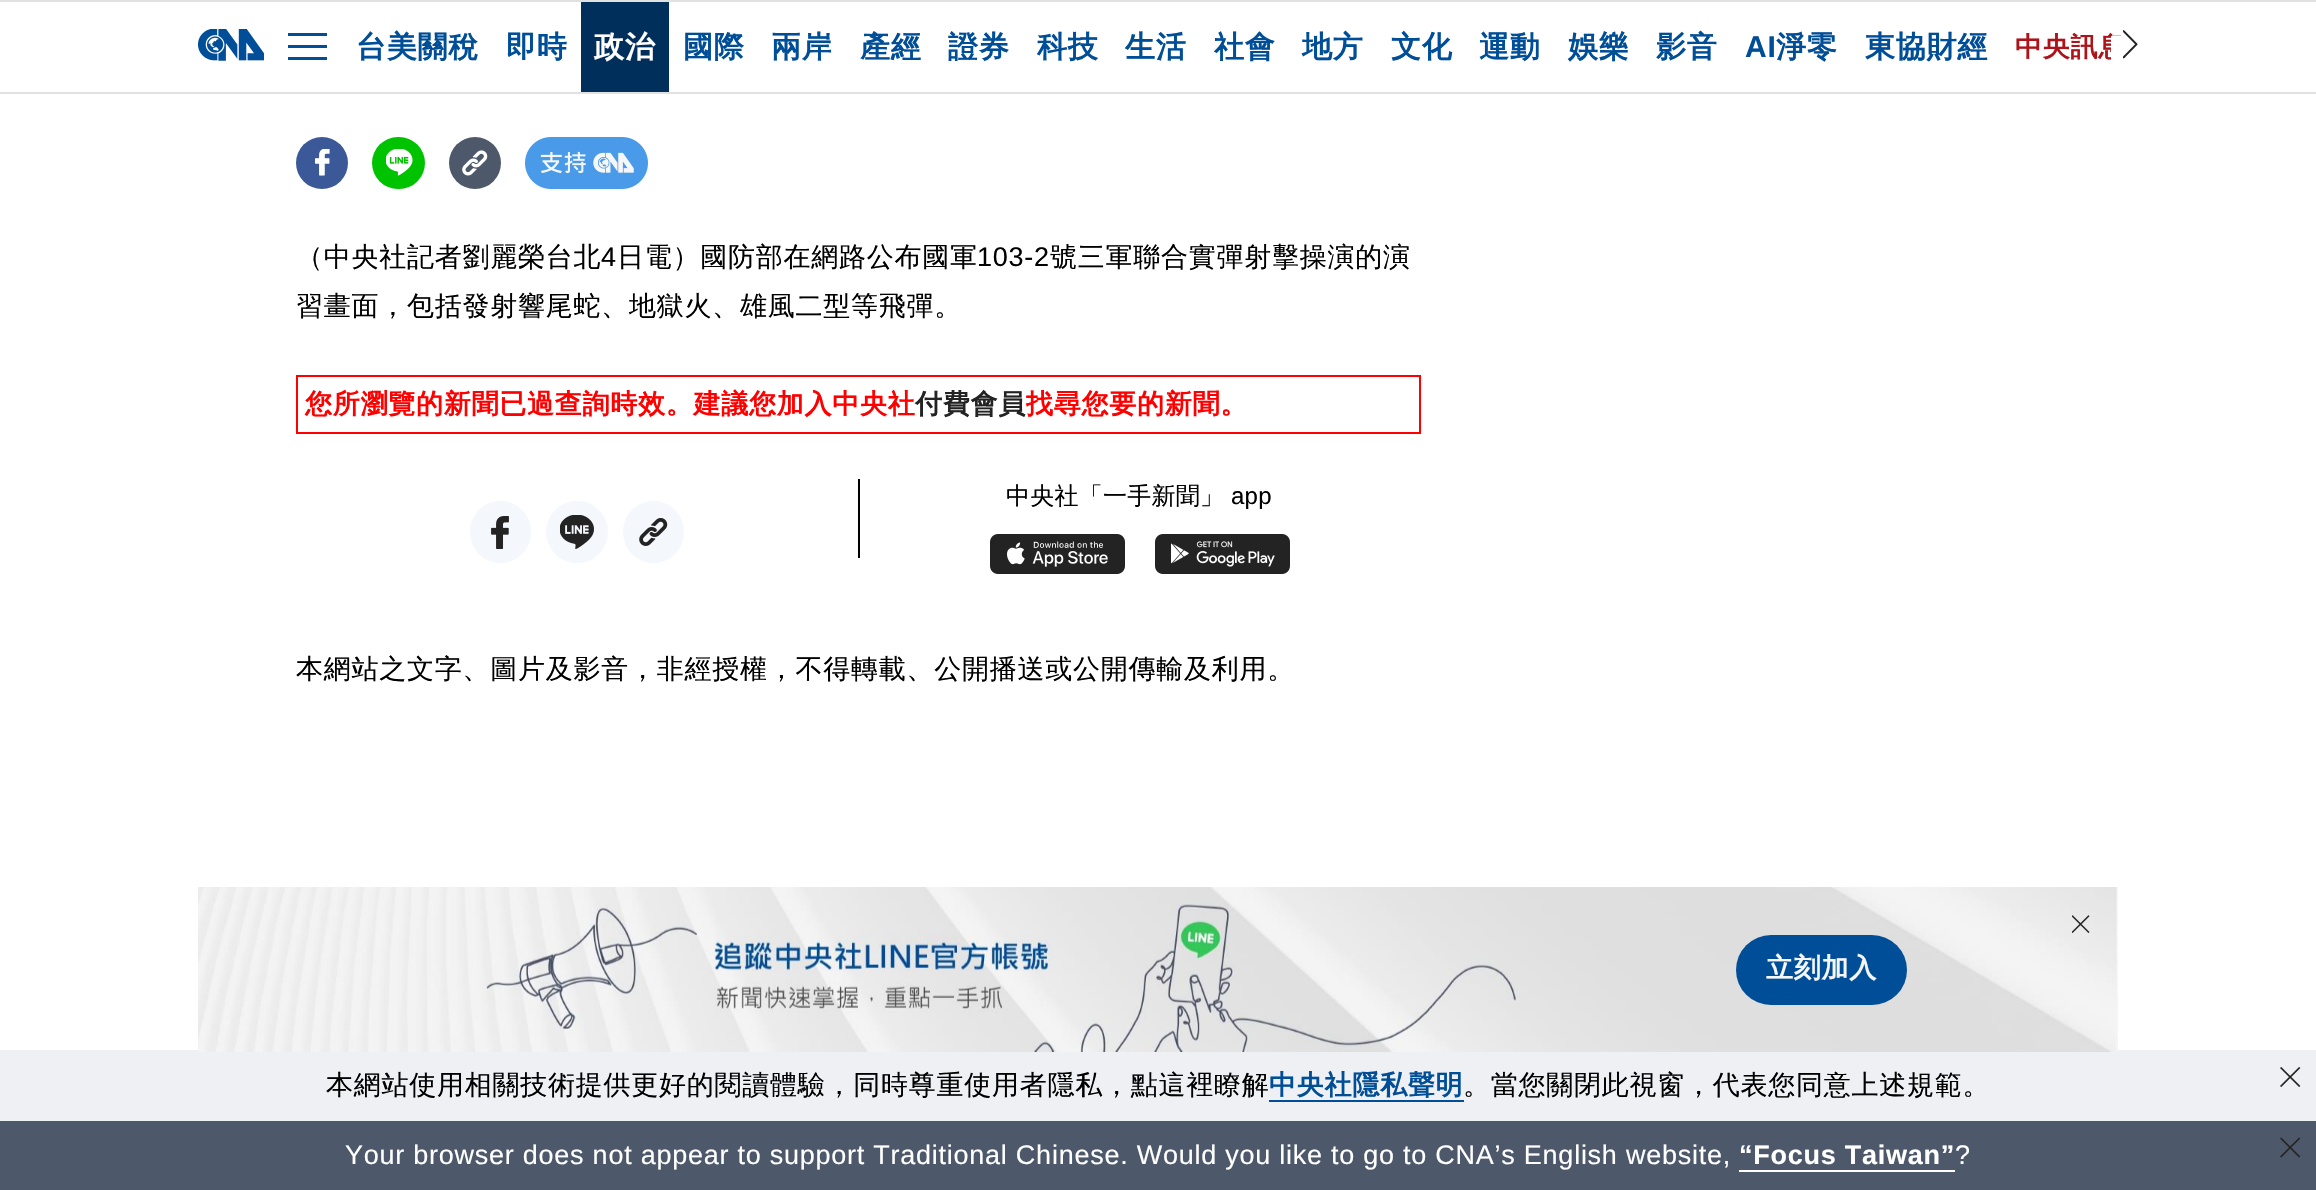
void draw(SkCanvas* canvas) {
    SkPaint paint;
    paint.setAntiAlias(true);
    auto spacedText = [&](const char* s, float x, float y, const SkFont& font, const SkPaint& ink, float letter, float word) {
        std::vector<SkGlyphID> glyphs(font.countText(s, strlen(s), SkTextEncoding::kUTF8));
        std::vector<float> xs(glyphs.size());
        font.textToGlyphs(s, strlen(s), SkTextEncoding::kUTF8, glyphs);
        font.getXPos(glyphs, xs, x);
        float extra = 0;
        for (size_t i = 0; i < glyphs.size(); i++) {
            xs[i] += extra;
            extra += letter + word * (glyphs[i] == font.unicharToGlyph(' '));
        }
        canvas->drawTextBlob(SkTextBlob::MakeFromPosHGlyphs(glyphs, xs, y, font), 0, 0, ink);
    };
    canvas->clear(0xFFFFFFFF);
    paint.setColor(0xFFE1E1E1);
    canvas->drawRect(SkRect::MakeXYWH(0, 0, 2316, 2), paint);
    canvas->drawRect(SkRect::MakeXYWH(0, 92, 2316, 2), paint);
    canvas->drawImageRect(SkImages::DeferredFromEncodedData(SkData::MakeFromFileName("img1.png")), SkRect::MakeXYWH(198, 29, 66, 32), SkSamplingOptions());
    paint.setColor(0xFF004E98);
    canvas->drawRect(SkRect::MakeXYWH(288, 33, 39, 3), paint);
    canvas->drawRect(SkRect::MakeXYWH(288, 45, 39, 3), paint);
    canvas->drawRect(SkRect::MakeXYWH(288, 57, 39, 3), paint);
    SkFont font1(fontMgr->matchFamilyStyle("WenQuanYi Zen Hei", SkFontStyle::Bold()), 30);
    font1.setSubpixel(true);
    spacedText("台美關稅", 356, 57, font1, paint, 0.75f, 0);
    spacedText("即時", 506, 57, font1, paint, 0.75f, 0);
    paint.setColor(0xFF002F5B);
    canvas->drawRect(SkRect::MakeXYWH(581, 2, 88, 90), paint);
    paint.setColor(0xFFFFFFFF);
    spacedText("政治", 594, 57, font1, paint, 0.75f, 0);
    paint.setColor(0xFF004E98);
    spacedText("國際", 683, 57, font1, paint, 0.75f, 0);
    spacedText("兩岸", 771, 57, font1, paint, 0.75f, 0);
    spacedText("產經", 860, 57, font1, paint, 0.75f, 0);
    spacedText("證券", 948, 57, font1, paint, 0.75f, 0);
    spacedText("科技", 1037, 57, font1, paint, 0.75f, 0);
    spacedText("生活", 1125, 57, font1, paint, 0.75f, 0);
    spacedText("社會", 1214, 57, font1, paint, 0.75f, 0);
    spacedText("地方", 1302, 57, font1, paint, 0.75f, 0);
    spacedText("文化", 1391, 57, font1, paint, 0.75f, 0);
    spacedText("運動", 1479, 57, font1, paint, 0.75f, 0);
    spacedText("娛樂", 1568, 57, font1, paint, 0.75f, 0);
    spacedText("影音", 1656, 57, font1, paint, 0.75f, 0);
    SkFont font2(fontMgr->matchFamilyStyle("Liberation Sans", SkFontStyle::Bold()), 30);
    font2.setSubpixel(true);
    spacedText("AI", 1745, 57, font2, paint, 0.75f, 0);
    spacedText("淨零", 1776, 57, font1, paint, 0.75f, 0);
    spacedText("東協財經", 1865, 57, font1, paint, 0.75f, 0);
    SkFont font3(fontMgr->matchFamilyStyle("WenQuanYi Zen Hei", SkFontStyle::Bold()), 27);
    font3.setSubpixel(true);
    paint.setColor(0xFFAE1319);
    spacedText("中央訊息", 2015, 56, font3, paint, 0.75f, 0);
    paint.setColor(0xFFFFFFFF);
    canvas->drawRect(SkRect::MakeXYWH(2111, 36, 13, 24), paint);
    canvas->drawImageRect(SkImages::DeferredFromEncodedData(SkData::MakeFromFileName("img2.png")), SkRect::MakeXYWH(2123, 30, 15, 29), SkSamplingOptions());
    paint.setColor(0xFF3B5999);
    canvas->drawCircle(322, 163, 26, paint);
    canvas->drawImageRect(SkImages::DeferredFromEncodedData(SkData::MakeFromFileName("img3.png")), SkRect::MakeXYWH(315, 149, 15, 27), SkSamplingOptions());
    paint.setColor(0xFF00C300);
    canvas->drawRoundRect(SkRect::MakeXYWH(372, 137, 53, 52), 26, 26, paint);
    canvas->drawImageRect(SkImages::DeferredFromEncodedData(SkData::MakeFromFileName("img4.png")), SkRect::MakeXYWH(386, 149, 27, 27), SkSamplingOptions());
    paint.setColor(0xFF4D596A);
    canvas->drawCircle(475, 163, 26, paint);
    canvas->drawImageRect(SkImages::DeferredFromEncodedData(SkData::MakeFromFileName("img5.png")), SkRect::MakeXYWH(462, 150, 26, 26), SkSamplingOptions());
    canvas->drawImageRect(SkImages::DeferredFromEncodedData(SkData::MakeFromFileName("img6.png")), SkRect::MakeXYWH(525, 137, 123, 52), SkSamplingOptions());
    SkFont font4(fontMgr->matchFamilyStyle("WenQuanYi Zen Hei", SkFontStyle(500, SkFontStyle::kNormal_Width, SkFontStyle::kUpright_Slant)), 27);
    font4.setSubpixel(true);
    paint.setColor(0xFF000000);
    spacedText("（中央社記者劉麗榮台北", 296, 266, font4, paint, 0.75f, 0);
    SkFont font5(fontMgr->matchFamilyStyle("Liberation Sans", SkFontStyle::Normal()), 27);
    font5.setSubpixel(true);
    spacedText("4", 601, 266, font5, paint, 0.75f, 0);
    spacedText("日電）國防部在網路公布國軍", 617, 266, font4, paint, 0.75f, 0);
    spacedText("103-2", 977, 266, font5, paint, 0.75f, 0);
    spacedText("號三軍聯合實彈射擊操演的演", 1050, 266, font4, paint, 0.75f, 0);
    spacedText("習畫面，包括發射響尾蛇、地獄火、雄風二型等飛彈。", 296, 315, font4, paint, 0.75f, 0);
    paint.setStyle(SkPaint::kStroke_Style);
    paint.setStrokeWidth(2);
    paint.setColor(0xFFFF0000);
    canvas->drawRect(SkRect::MakeXYWH(297, 376, 1123, 57), paint);
    paint.setStyle(SkPaint::kFill_Style);
    spacedText("您所瀏覽的新聞已過查詢時效。建議您加入中央社", 305, 413, font3, paint, 0.75f, 0);
    paint.setColor(0xFF232323);
    spacedText("付費會員", 915, 413, font3, paint, 0.75f, 0);
    paint.setColor(0xFFFF0000);
    spacedText("找尋您要的新聞。", 1026, 413, font3, paint, 0.75f, 0);
    paint.setColor(0xFF000000);
    canvas->drawRect(SkRect::MakeXYWH(858, 479, 2, 79), paint);
    SkFont font6(fontMgr->matchFamilyStyle("WenQuanYi Zen Hei", SkFontStyle(500, SkFontStyle::kNormal_Width, SkFontStyle::kUpright_Slant)), 24);
    font6.setSubpixel(true);
    spacedText("中央社「一手新聞」", 1006, 504, font6, paint, 0.25f, 0);
    SkFont font7(fontMgr->matchFamilyStyle("Liberation Sans", SkFontStyle::Normal()), 24);
    font7.setSubpixel(true);
    spacedText("app", 1231, 504, font7, paint, 0.25f, 0);
    canvas->drawImageRect(SkImages::DeferredFromEncodedData(SkData::MakeFromFileName("img7.png")), SkRect::MakeXYWH(990, 534, 135, 40), SkSamplingOptions());
    canvas->drawImageRect(SkImages::DeferredFromEncodedData(SkData::MakeFromFileName("img8.png")), SkRect::MakeXYWH(1155, 534, 135, 40), SkSamplingOptions());
    paint.setColor(0xFFF4F7FC);
    canvas->drawRoundRect(SkRect::MakeXYWH(470, 501, 61, 62), 30.5f, 30.5f, paint);
    canvas->drawImageRect(SkImages::DeferredFromEncodedData(SkData::MakeFromFileName("img9.png")), SkRect::MakeXYWH(491, 516, 18, 33), SkSamplingOptions());
    canvas->drawCircle(577, 532, 31, paint);
    canvas->drawImageRect(SkImages::DeferredFromEncodedData(SkData::MakeFromFileName("img10.png")), SkRect::MakeXYWH(560, 515, 34, 34), SkSamplingOptions());
    canvas->drawRoundRect(SkRect::MakeXYWH(623, 501, 61, 62), 30.5f, 30.5f, paint);
    canvas->drawImageRect(SkImages::DeferredFromEncodedData(SkData::MakeFromFileName("img11.png")), SkRect::MakeXYWH(639, 518, 29, 28), SkSamplingOptions());
    paint.setColor(0xFF000000);
    spacedText("本網站之文字、圖片及影音，非經授權，不得轉載、公開播送或公開傳輸及利用。", 296, 678, font4, paint, 0.75f, 0);
    paint.setColor(0xFFEEF0F3);
    canvas->drawRect(SkRect::MakeXYWH(0, 1050, 2316, 71), paint);
    canvas->drawImageRect(SkImages::DeferredFromEncodedData(SkData::MakeFromFileName("img12.png")), SkRect::MakeXYWH(198, 887, 1920, 165), SkSamplingOptions());
    canvas->drawImageRect(SkImages::DeferredFromEncodedData(SkData::MakeFromFileName("img13.png")), SkRect::MakeXYWH(2072, 915, 18, 18), SkSamplingOptions());
    paint.setColor(0xFF004E98);
    canvas->drawRoundRect(SkRect::MakeXYWH(1736, 935, 171, 70), 35, 35, paint);
    paint.setColor(0xFFF6F6F6);
    spacedText("立刻加入", 1766, 977, font3, paint, 0.75f, 0);
    paint.setColor(0xFF000000);
    spacedText("本網站使用相關技術提供更好的閱讀體驗，同時尊重使用者隱私，點這裡瞭解", 326, 1094, font4, paint, 0.75f, 0);
    paint.setColor(0xFF004E98);
    spacedText("中央社隱私聲明", 1269, 1094, font3, paint, 0.75f, 0);
    canvas->drawRect(SkRect::MakeXYWH(1269, 1100, 195, 2), paint);
    paint.setColor(0xFF000000);
    spacedText("。當您關閉此視窗，代表您同意上述規範。", 1463, 1094, font4, paint, 0.75f, 0);
    canvas->drawImageRect(SkImages::DeferredFromEncodedData(SkData::MakeFromFileName("img14.png")), SkRect::MakeXYWH(2280, 1067, 21, 20), SkSamplingOptions());
    paint.setColor(0xFF4D596A);
    canvas->drawRect(SkRect::MakeXYWH(0, 1121, 2316, 69), paint);
    paint.setColor(0xFFFFFFFF);
    spacedText("Your browser does not appear to support Traditional Chinese. Would you like to go to CNA’s English website,", 345, 1164, font5, paint, 0.75f, 0);
    SkFont font8(fontMgr->matchFamilyStyle("Liberation Sans", SkFontStyle::Bold()), 27);
    font8.setSubpixel(true);
    spacedText("“Focus Taiwan”", 1739, 1164, font8, paint, 0.75f, 0);
    canvas->drawRect(SkRect::MakeXYWH(1739, 1170, 216, 2), paint);
    spacedText("?", 1955, 1164, font5, paint, 0.75f, 0);
    canvas->drawImageRect(SkImages::DeferredFromEncodedData(SkData::MakeFromFileName("img15.png")), SkRect::MakeXYWH(2280, 1137, 21, 21), SkSamplingOptions());
}
